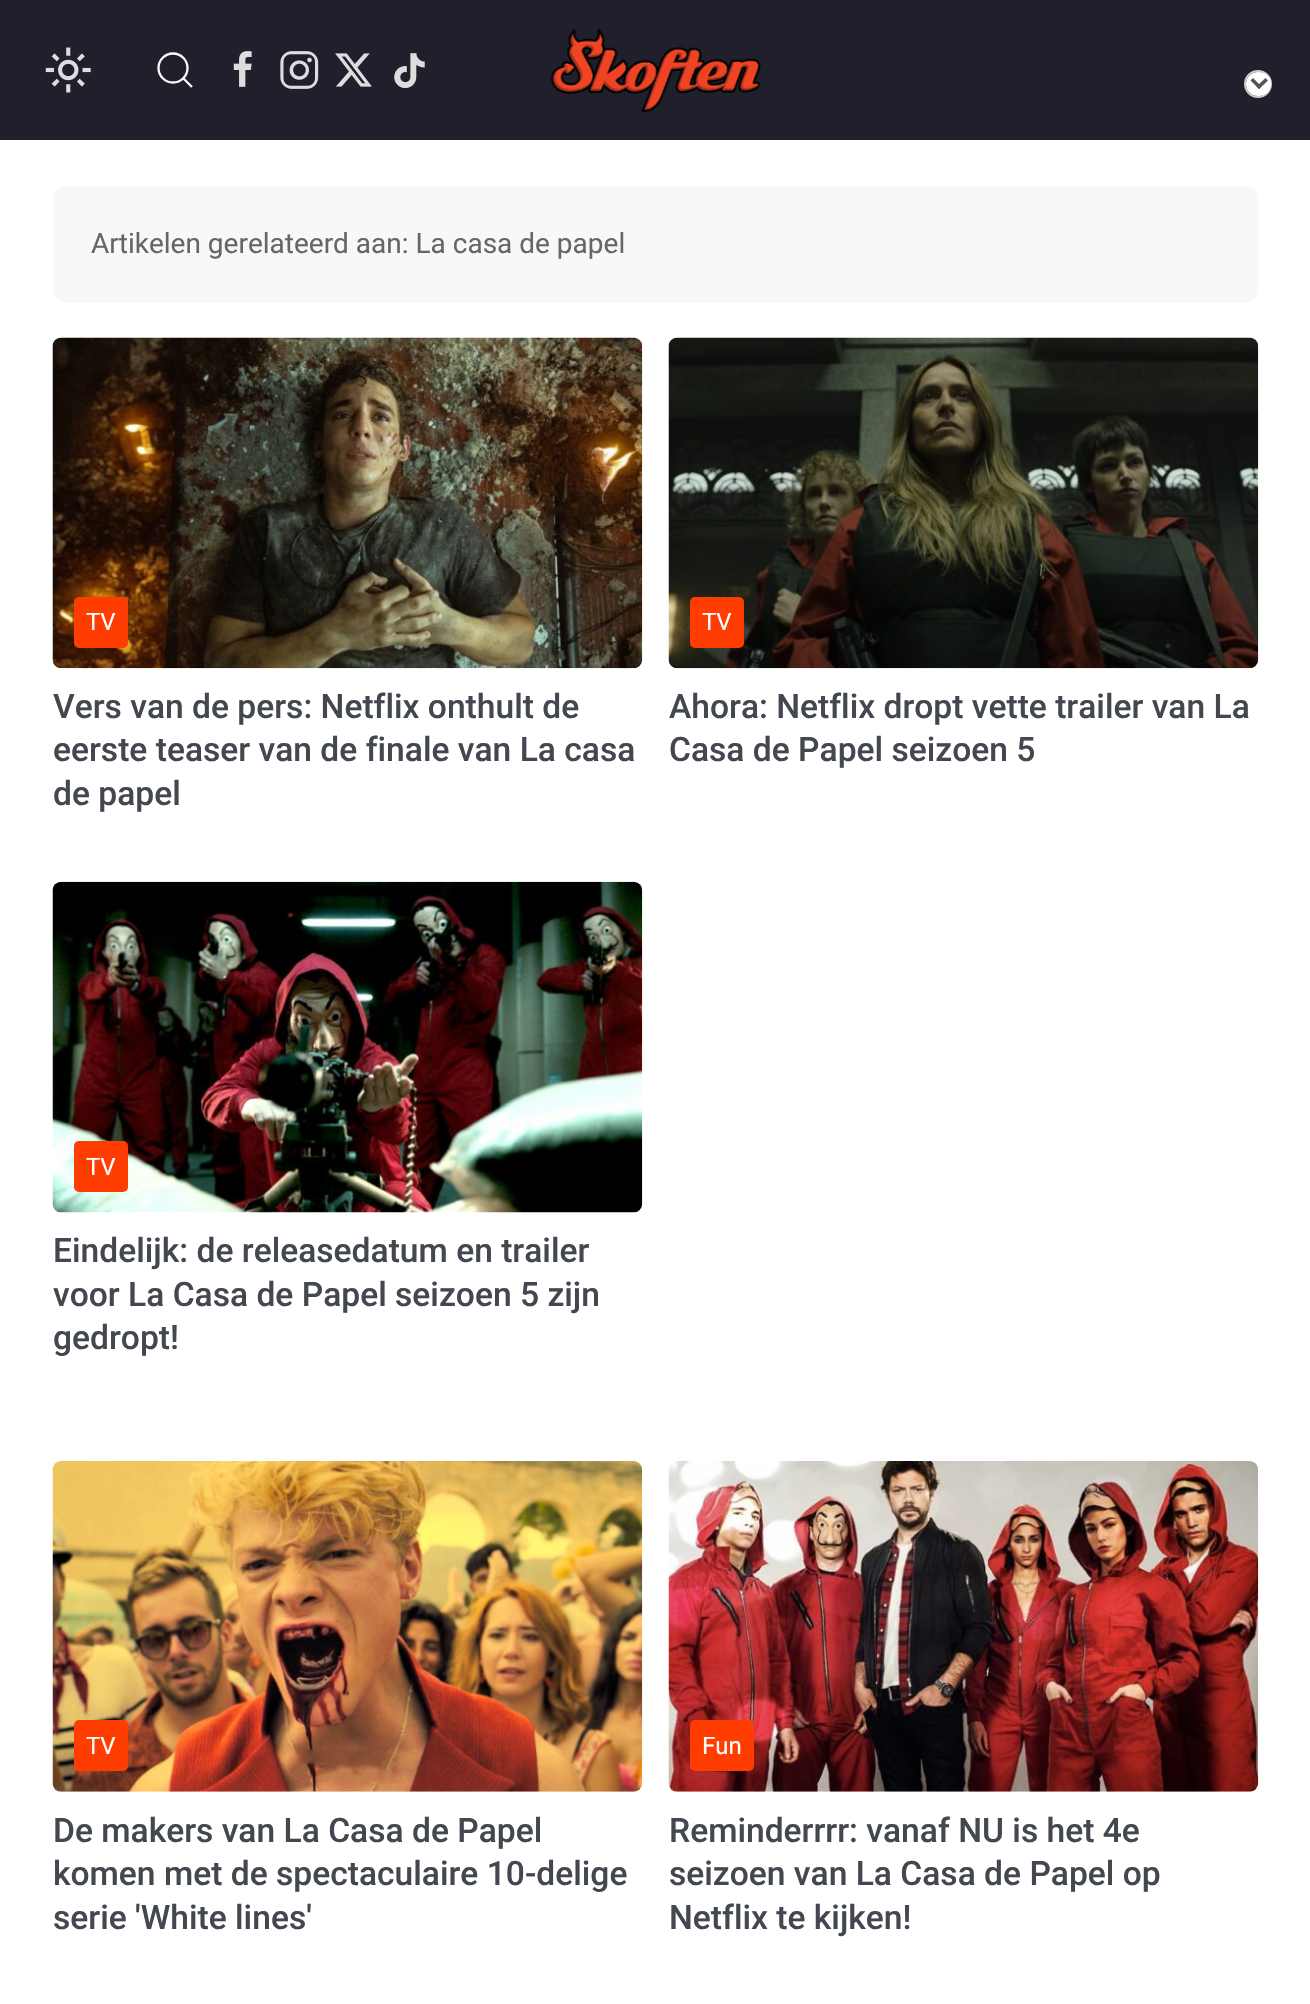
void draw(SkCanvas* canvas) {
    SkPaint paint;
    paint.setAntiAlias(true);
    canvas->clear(0xFFFFFFFF);
    paint.setColor(0xFF20202C);
    canvas->drawRect(SkRect::MakeXYWH(0, 0, 1310, 140), paint);
    canvas->drawImageRect(SkImages::DeferredFromEncodedData(SkData::MakeFromFileName("img1.png")), SkRect::MakeXYWH(45, 47, 46, 46), SkSamplingOptions());
    paint.setStyle(SkPaint::kStroke_Style);
    paint.setStrokeWidth(2.3f);
    paint.setColor(0xFFFAFAFA);
    canvas->drawCircle(173, 68, 14.5f, paint);
    canvas->drawPath(SkPathBuilder().moveTo(183.5f, 78.5f).lineTo(192, 87).close().detach(), paint);
    canvas->drawImageRect(SkImages::DeferredFromEncodedData(SkData::MakeFromFileName("img2.png")), SkRect::MakeXYWH(233, 51, 19, 36), SkSamplingOptions());
    canvas->drawImageRect(SkImages::DeferredFromEncodedData(SkData::MakeFromFileName("img3.png")), SkRect::MakeXYWH(280, 51, 39, 38), SkSamplingOptions());
    canvas->drawImageRect(SkImages::DeferredFromEncodedData(SkData::MakeFromFileName("img4.png")), SkRect::MakeXYWH(335, 53, 37, 34), SkSamplingOptions());
    canvas->drawImageRect(SkImages::DeferredFromEncodedData(SkData::MakeFromFileName("img5.png")), SkRect::MakeXYWH(394, 53, 31, 36), SkSamplingOptions());
    canvas->drawImageRect(SkImages::DeferredFromEncodedData(SkData::MakeFromFileName("img6.png")), SkRect::MakeXYWH(550, 28, 211, 84), SkSamplingOptions());
    paint.setStrokeWidth(2);
    paint.setColor(0xFFCCCCCC);
    canvas->drawCircle(1258, 84, 13, paint);
    paint.setStyle(SkPaint::kFill_Style);
    paint.setColor(0xFFFFFFFF);
    canvas->drawRoundRect(SkRect::MakeXYWH(1246, 72, 25, 24), 12, 12, paint);
    paint.setColor(0xFF555555);
    canvas->drawPath(SkPathBuilder().moveTo(1265.5f, 78).lineTo(1268, 80.5f).lineTo(1259, 89).lineTo(1256.5f, 86.5f).close().detach(), paint);
    canvas->drawPath(SkPathBuilder().moveTo(1253, 78).lineTo(1261.5f, 86.5f).lineTo(1259, 89).lineTo(1250.5f, 80.5f).close().detach(), paint);
    paint.setColor(0xFFF8F8F8);
    canvas->drawRoundRect(SkRect::MakeXYWH(53, 186, 1205, 117), 14, 14, paint);
    SkFont font1(fontMgr->matchFamilyStyle("Roboto", SkFontStyle::Normal()), 28);
    font1.setSubpixel(true);
    paint.setColor(0xFF666666);
    canvas->drawString("Artikelen gerelateerd aan: La casa de papel", 91, 253, font1, paint);
    canvas->drawImageRect(SkImages::DeferredFromEncodedData(SkData::MakeFromFileName("img7.png")), SkRect::MakeXYWH(52, 337, 591, 332), SkSamplingOptions());
    paint.setColor(0xFFFF3D00);
    canvas->drawRoundRect(SkRect::MakeXYWH(74, 597, 54, 51), 5, 5, paint);
    SkFont font2(fontMgr->matchFamilyStyle("Roboto", SkFontStyle::Normal()), 24);
    font2.setSubpixel(true);
    paint.setColor(0xFFFFFFFF);
    canvas->drawString("TV", 86, 630, font2, paint);
    SkFont font3(fontMgr->matchFamilyStyle("Roboto", SkFontStyle(500, SkFontStyle::kNormal_Width, SkFontStyle::kUpright_Slant)), 33.6f);
    font3.setSubpixel(true);
    paint.setColor(0xFF43474F);
    canvas->drawString("Vers van de pers: Netflix onthult de", 53, 718, font3, paint);
    canvas->drawString("eerste teaser van de finale van La casa", 53, 761, font3, paint);
    canvas->drawString("de papel", 53, 805, font3, paint);
    canvas->drawImageRect(SkImages::DeferredFromEncodedData(SkData::MakeFromFileName("img8.png")), SkRect::MakeXYWH(668, 337, 591, 332), SkSamplingOptions());
    paint.setColor(0xFFFF3D00);
    canvas->drawRoundRect(SkRect::MakeXYWH(690, 597, 54, 51), 5, 5, paint);
    paint.setColor(0xFFFFFFFF);
    canvas->drawString("TV", 702, 630, font2, paint);
    paint.setColor(0xFF43474F);
    canvas->drawString("Ahora: Netflix dropt vette trailer van La", 669, 718, font3, paint);
    canvas->drawString("Casa de Papel seizoen 5", 669, 761, font3, paint);
    canvas->drawImageRect(SkImages::DeferredFromEncodedData(SkData::MakeFromFileName("img9.png")), SkRect::MakeXYWH(52, 881, 591, 332), SkSamplingOptions());
    paint.setColor(0xFFFF3D00);
    canvas->drawRoundRect(SkRect::MakeXYWH(74, 1141, 54, 51), 5, 5, paint);
    paint.setColor(0xFFFFFFFF);
    canvas->drawString("TV", 86, 1175, font2, paint);
    paint.setColor(0xFF43474F);
    canvas->drawString("Eindelijk: de releasedatum en trailer", 53, 1262, font3, paint);
    canvas->drawString("voor La Casa de Papel seizoen 5 zijn", 53, 1306, font3, paint);
    canvas->drawString("gedropt!", 53, 1349, font3, paint);
    canvas->drawImageRect(SkImages::DeferredFromEncodedData(SkData::MakeFromFileName("img10.png")), SkRect::MakeXYWH(52, 1461, 591, 331), SkSamplingOptions());
    paint.setColor(0xFFFF3D00);
    canvas->drawRoundRect(SkRect::MakeXYWH(74, 1720, 54, 51), 5, 5, paint);
    paint.setColor(0xFFFFFFFF);
    canvas->drawString("TV", 86, 1754, font2, paint);
    paint.setColor(0xFF43474F);
    canvas->drawString("De makers van La Casa de Papel", 53, 1842, font3, paint);
    canvas->drawString("komen met de spectaculaire 10-delige", 53, 1885, font3, paint);
    canvas->drawString("serie 'White lines'", 53, 1929, font3, paint);
    canvas->drawImageRect(SkImages::DeferredFromEncodedData(SkData::MakeFromFileName("img11.png")), SkRect::MakeXYWH(668, 1461, 591, 331), SkSamplingOptions());
    paint.setColor(0xFFFF3D00);
    canvas->drawRoundRect(SkRect::MakeXYWH(690, 1720, 64, 51), 5, 5, paint);
    paint.setColor(0xFFFFFFFF);
    canvas->drawString("Fun", 702, 1754, font2, paint);
    paint.setColor(0xFF43474F);
    canvas->drawString("Reminderrrr: vanaf NU is het 4e", 669, 1842, font3, paint);
    canvas->drawString("seizoen van La Casa de Papel op", 669, 1885, font3, paint);
    canvas->drawString("Netflix te kijken!", 669, 1929, font3, paint);
}
